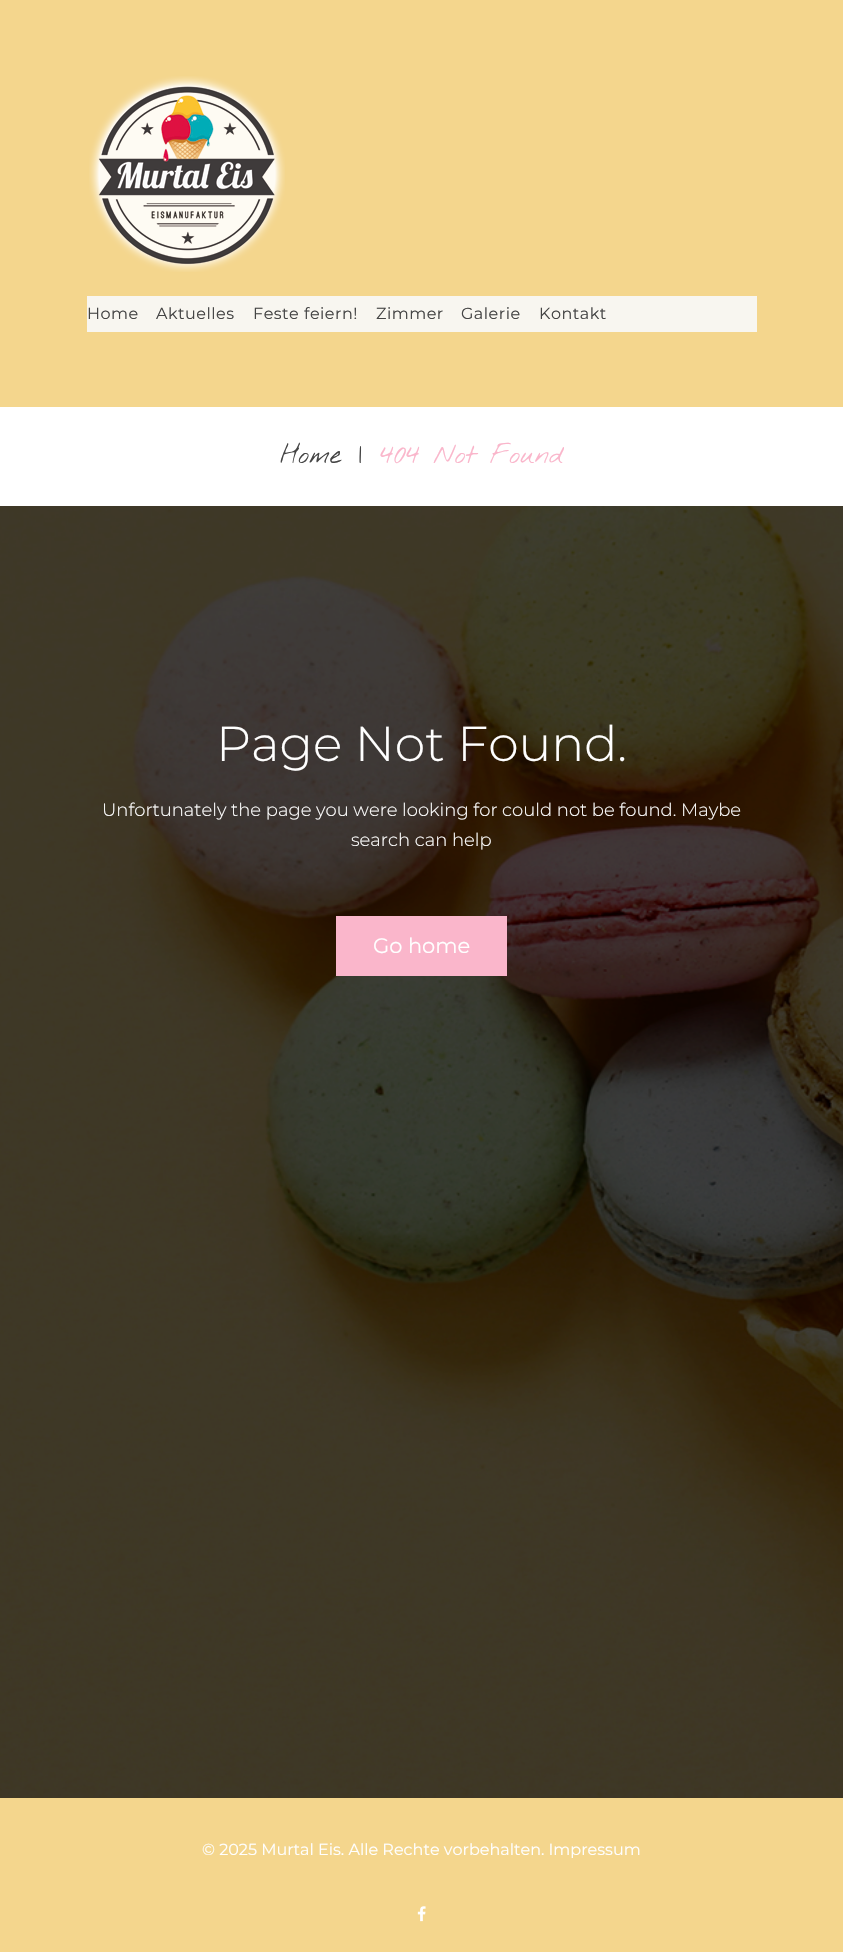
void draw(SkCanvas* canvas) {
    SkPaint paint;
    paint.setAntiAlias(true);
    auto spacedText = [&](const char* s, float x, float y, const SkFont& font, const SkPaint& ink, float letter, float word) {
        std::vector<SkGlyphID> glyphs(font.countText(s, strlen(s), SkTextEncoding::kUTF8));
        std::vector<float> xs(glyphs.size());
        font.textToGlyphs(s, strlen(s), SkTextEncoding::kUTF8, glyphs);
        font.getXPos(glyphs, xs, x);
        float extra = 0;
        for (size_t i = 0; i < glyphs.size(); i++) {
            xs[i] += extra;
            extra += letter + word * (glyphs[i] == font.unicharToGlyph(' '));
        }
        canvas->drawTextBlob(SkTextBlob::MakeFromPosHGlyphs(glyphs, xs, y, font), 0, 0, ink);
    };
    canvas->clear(0xFFF4D68D);
    canvas->drawImageRect(SkImages::DeferredFromEncodedData(SkData::MakeFromFileName("img1.png")), SkRect::MakeXYWH(89, 76, 196, 196), SkSamplingOptions());
    paint.setColor(0xFFF8F6F0);
    canvas->drawRect(SkRect::MakeXYWH(87, 296, 670, 36), paint);
    SkFont font1(fontMgr->matchFamilyStyle("Montserrat", SkFontStyle::Normal()), 16);
    font1.setSubpixel(true);
    paint.setColor(0xFF444444);
    spacedText("Home", 87, 319, font1, paint, 0.5f, 0);
    spacedText("Aktuelles", 156, 319, font1, paint, 0.5f, 0);
    spacedText("Feste feiern!", 253, 319, font1, paint, 0.5f, 0);
    spacedText("Zimmer", 376, 319, font1, paint, 0.5f, 0);
    spacedText("Galerie", 461, 319, font1, paint, 0.5f, 0);
    spacedText("Kontakt", 539, 319, font1, paint, 0.5f, 0);
    canvas->drawImageRect(SkImages::DeferredFromEncodedData(SkData::MakeFromFileName("img2.png")), SkRect::MakeXYWH(0, 506, 843, 1292), SkSamplingOptions());
    paint.setColor(0xFFFFFFFF);
    canvas->drawRect(SkRect::MakeXYWH(0, 407, 843, 99), paint);
    SkFont font2(fontMgr->matchFamilyStyle("Nothing You Could Do", SkFontStyle(100, SkFontStyle::kNormal_Width, SkFontStyle::kUpright_Slant)), 26);
    font2.setSubpixel(true);
    paint.setColor(0xFF444444);
    canvas->drawString("Home", 280, 463, font2, paint);
    canvas->drawString("|", 359, 463, font2, paint);
    paint.setColor(0xFFFAB6CB);
    canvas->drawString("404 Not Found", 380, 463, font2, paint);
    SkFont font3(fontMgr->matchFamilyStyle("Montserrat", SkFontStyle(300, SkFontStyle::kNormal_Width, SkFontStyle::kUpright_Slant)), 49);
    font3.setSubpixel(true);
    paint.setColor(0xFFFFFFFF);
    canvas->drawString("Page Not Found.", 216, 761, font3, paint);
    SkFont font4(fontMgr->matchFamilyStyle("Montserrat", SkFontStyle(300, SkFontStyle::kNormal_Width, SkFontStyle::kUpright_Slant)), 18);
    font4.setSubpixel(true);
    canvas->drawString("Unfortunately the page you were looking for could not be found. Maybe", 102, 816, font4, paint);
    canvas->drawString("search can help", 351, 846, font4, paint);
    paint.setColor(0xFFFAB6CB);
    canvas->drawRect(SkRect::MakeXYWH(336, 916, 171, 60), paint);
    SkFont font5(fontMgr->matchFamilyStyle("Montserrat", SkFontStyle::Normal()), 21);
    font5.setSubpixel(true);
    paint.setColor(0xFFFFFFFF);
    canvas->drawString("Go home", 373, 953, font5, paint);
    canvas->drawString("© 2025 Murtal Eis. Alle Rechte vorbehalten. Impressum", 202, 1855, font1, paint);
    canvas->drawImageRect(SkImages::DeferredFromEncodedData(SkData::MakeFromFileName("img3.png")), SkRect::MakeXYWH(417, 1906, 9, 16), SkSamplingOptions());
}
